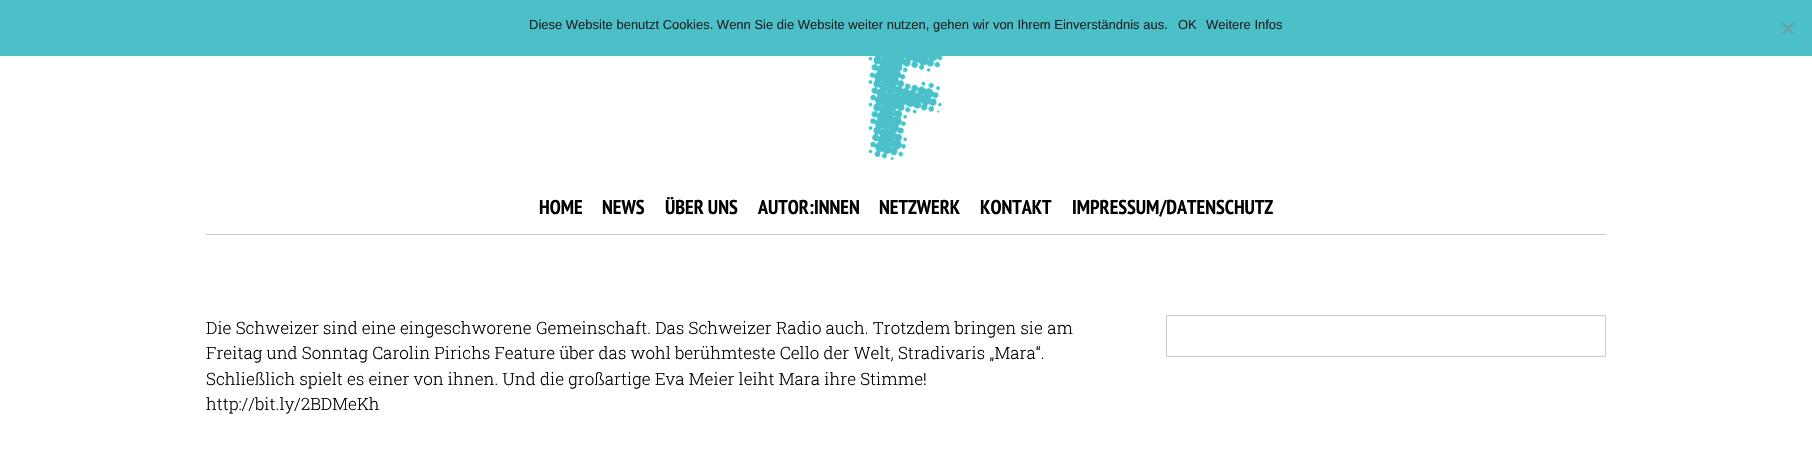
void draw(SkCanvas* canvas) {
    SkPaint paint;
    paint.setAntiAlias(true);
    canvas->clear(0xFFFFFFFF);
    paint.setColor(0xFF4BC0C8);
    canvas->drawRect(SkRect::MakeXYWH(0, 0, 1812, 56), paint);
    SkFont font1(fontMgr->matchFamilyStyle("Liberation Sans", SkFontStyle::Normal()), 13);
    font1.setSubpixel(true);
    paint.setColor(0xFF222222);
    canvas->drawString("Diese Website benutzt Cookies. Wenn Sie die Website weiter nutzen, gehen wir von Ihrem Einverständnis aus.", 529, 29, font1, paint);
    canvas->drawString("OK", 1178, 29, font1, paint);
    canvas->drawString("Weitere Infos", 1206, 29, font1, paint);
    paint.setColor(0xFF66A0A4);
    canvas->drawPath(SkPathBuilder().moveTo(1792.5f, 22.5f).lineTo(1794, 24).lineTo(1783.5f, 34.5f).lineTo(1782, 33).close().detach(), paint);
    canvas->drawPath(SkPathBuilder().moveTo(1782, 24).lineTo(1783.5f, 22.5f).lineTo(1794, 33).lineTo(1792.5f, 34.5f).close().detach(), paint);
    canvas->drawImageRect(SkImages::DeferredFromEncodedData(SkData::MakeFromFileName("img1.png")), SkRect::MakeXYWH(868, 56, 77, 105), SkSamplingOptions());
    SkFont font2(fontMgr->matchFamilyStyle("PT Sans Narrow", SkFontStyle::Bold()), 20);
    font2.setSubpixel(true);
    paint.setColor(0xFF000000);
    canvas->drawString("HOME", 539, 214, font2, paint);
    canvas->drawString("NEWS", 602, 214, font2, paint);
    canvas->drawString("ÜBER UNS", 665, 214, font2, paint);
    canvas->drawString("AUTOR:INNEN", 758, 214, font2, paint);
    canvas->drawString("NETZWERK", 879, 214, font2, paint);
    canvas->drawString("KONTAKT", 980, 214, font2, paint);
    canvas->drawString("IMPRESSUM/DATENSCHUTZ", 1072, 214, font2, paint);
    paint.setColor(0xFFCCCCCC);
    canvas->drawRect(SkRect::MakeXYWH(206, 234, 1400, 1), paint);
    SkFont font3(fontMgr->matchFamilyStyle("Roboto Slab", SkFontStyle(300, SkFontStyle::kNormal_Width, SkFontStyle::kUpright_Slant)), 17);
    font3.setSubpixel(true);
    paint.setColor(0xFF000000);
    canvas->drawString("Die Schweizer sind eine eingeschworene Gemeinschaft. Das Schweizer Radio auch. Trotzdem bringen sie am", 206, 334, font3, paint);
    canvas->drawString("Freitag und Sonntag Carolin Pirichs Feature über das wohl berühmteste Cello der Welt, Stradivaris „Mara“.", 206, 359, font3, paint);
    canvas->drawString("Schließlich spielt es einer von ihnen. Und die großartige Eva Meier leiht Mara ihre Stimme!", 206, 385, font3, paint);
    canvas->drawString("http://bit.ly/2BDMeKh", 206, 410, font3, paint);
    paint.setStyle(SkPaint::kStroke_Style);
    paint.setStrokeWidth(1);
    paint.setColor(0xFFCCCCCC);
    canvas->drawRect(SkRect::MakeXYWH(1166.5f, 315.5f, 439, 41), paint);
}
